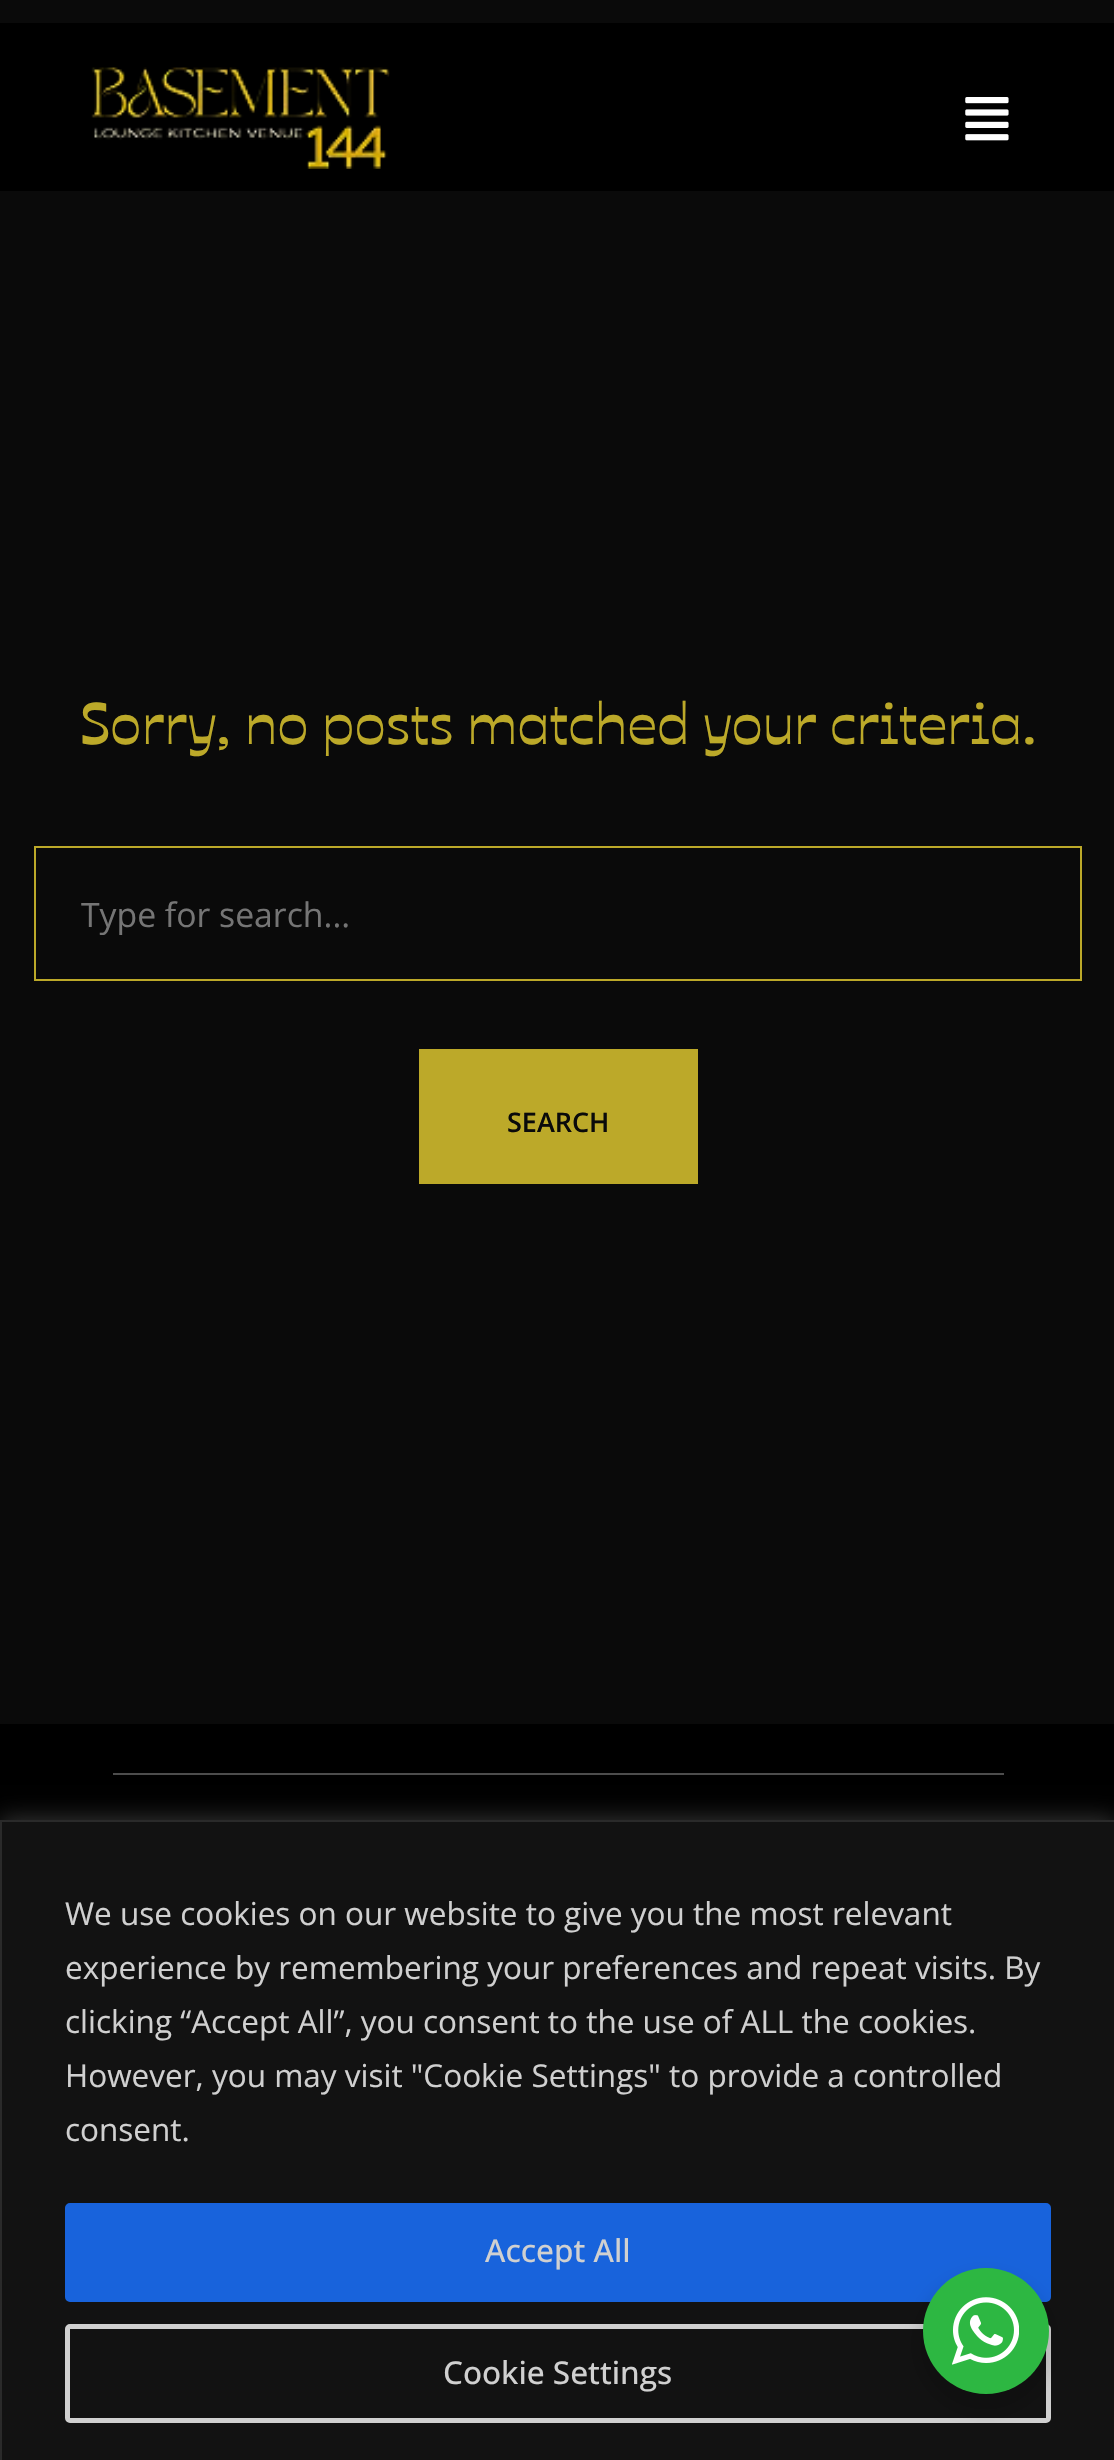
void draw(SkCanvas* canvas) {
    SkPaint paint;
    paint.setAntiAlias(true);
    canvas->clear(0xFF0A0A0A);
    paint.setColor(0xFF000000);
    canvas->drawRect(SkRect::MakeXYWH(0, 23, 1114, 168), paint);
    canvas->drawImageRect(SkImages::DeferredFromEncodedData(SkData::MakeFromFileName("img1.png")), SkRect::MakeXYWH(91, 67, 299, 102), SkSamplingOptions());
    canvas->drawImageRect(SkImages::DeferredFromEncodedData(SkData::MakeFromFileName("img2.png")), SkRect::MakeXYWH(965, 97, 44, 44), SkSamplingOptions());
    SkFont font1(fontMgr->matchFamilyStyle("Ojuju", SkFontStyle(600, SkFontStyle::kNormal_Width, SkFontStyle::kUpright_Slant)), 58.5f);
    font1.setSubpixel(true);
    paint.setColor(0xFFBCA929);
    canvas->drawString("Sorry, no posts matched your criteria.", 79, 744, font1, paint);
    paint.setStyle(SkPaint::kStroke_Style);
    paint.setStrokeWidth(2);
    canvas->drawRect(SkRect::MakeXYWH(35, 847, 1046, 133), paint);
    SkFont font2(fontMgr->matchFamilyStyle("Open Sans", SkFontStyle::Normal()), 33.75f);
    font2.setSubpixel(true);
    paint.setStyle(SkPaint::kFill_Style);
    paint.setColor(0xFF757575);
    canvas->drawString("Type for search...", 81, 927, font2, paint);
    paint.setColor(0xFFBCA929);
    canvas->drawRect(SkRect::MakeXYWH(419, 1049, 279, 135), paint);
    SkFont font3(fontMgr->matchFamilyStyle("Open Sans", SkFontStyle(600, SkFontStyle::kNormal_Width, SkFontStyle::kUpright_Slant)), 27);
    font3.setSubpixel(true);
    paint.setColor(0xFF0A0A0A);
    canvas->drawString("SEARCH", 507, 1132, font3, paint);
    paint.setColor(0xFF000000);
    canvas->drawRect(SkRect::MakeXYWH(0, 1724, 1114, 96), paint);
    paint.setColor(0xFF4D4D4D);
    canvas->drawRect(SkRect::MakeXYWH(113, 1773, 891, 2), paint);
    paint.setColor(0x4DACABAB);
    paint.setMaskFilter(SkMaskFilter::MakeBlur(kNormal_SkBlurStyle, 11));
    canvas->drawRect(SkRect::MakeXYWH(0, 1818, 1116, 641), paint);
    paint.setMaskFilter(nullptr);
    paint.setColor(0xFF121212);
    canvas->drawRect(SkRect::MakeXYWH(1, 1821, 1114, 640), paint);
    paint.setStyle(SkPaint::kStroke_Style);
    paint.setColor(0xFF2A2A2A);
    canvas->drawRect(SkRect::MakeXYWH(1, 1821, 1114, 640), paint);
    SkFont font4(fontMgr->matchFamilyStyle("Open Sans", SkFontStyle::Normal()), 31.5f);
    font4.setSubpixel(true);
    paint.setStyle(SkPaint::kFill_Style);
    paint.setColor(0xFFD0D0D0);
    canvas->drawString("We use cookies on our website to give you the most relevant", 65, 1925, font4, paint);
    canvas->drawString("experience by remembering your preferences and repeat visits. By", 65, 1979, font4, paint);
    canvas->drawString("clicking “Accept All”, you consent to the use of ALL the cookies.", 65, 2033, font4, paint);
    canvas->drawString("However, you may visit \"Cookie Settings\" to provide a controlled", 65, 2087, font4, paint);
    canvas->drawString("consent.", 65, 2141, font4, paint);
    paint.setColor(0xFF1863DC);
    canvas->drawRoundRect(SkRect::MakeXYWH(67.5f, 2205.5f, 981, 94), 2.5f, 2.5f, paint);
    paint.setStyle(SkPaint::kStroke_Style);
    paint.setStrokeWidth(5);
    canvas->drawRoundRect(SkRect::MakeXYWH(67.5f, 2205.5f, 981, 94), 2.5f, 2.5f, paint);
    SkFont font5(fontMgr->matchFamilyStyle("Open Sans", SkFontStyle(500, SkFontStyle::kNormal_Width, SkFontStyle::kUpright_Slant)), 31.5f);
    font5.setSubpixel(true);
    paint.setStyle(SkPaint::kFill_Style);
    paint.setColor(0xFFD0D0D0);
    canvas->drawString("Accept All", 485, 2262, font5, paint);
    paint.setStyle(SkPaint::kStroke_Style);
    canvas->drawRoundRect(SkRect::MakeXYWH(67.5f, 2326.5f, 981, 94), 2.5f, 2.5f, paint);
    paint.setStyle(SkPaint::kFill_Style);
    canvas->drawString("Cookie Settings", 443, 2384, font5, paint);
    paint.setColor(0x24000000);
    paint.setMaskFilter(SkMaskFilter::MakeBlur(kNormal_SkBlurStyle, 9));
    canvas->drawRoundRect(SkRect::MakeXYWH(918, 2277, 135, 135), 67.5f, 67.5f, paint);
    paint.setMaskFilter(nullptr);
    paint.setColor(0xFF2DB742);
    canvas->drawCircle(986, 2331, 63, paint);
    canvas->drawImageRect(SkImages::DeferredFromEncodedData(SkData::MakeFromFileName("img3.png")), SkRect::MakeXYWH(952, 2297, 67, 68), SkSamplingOptions());
}
